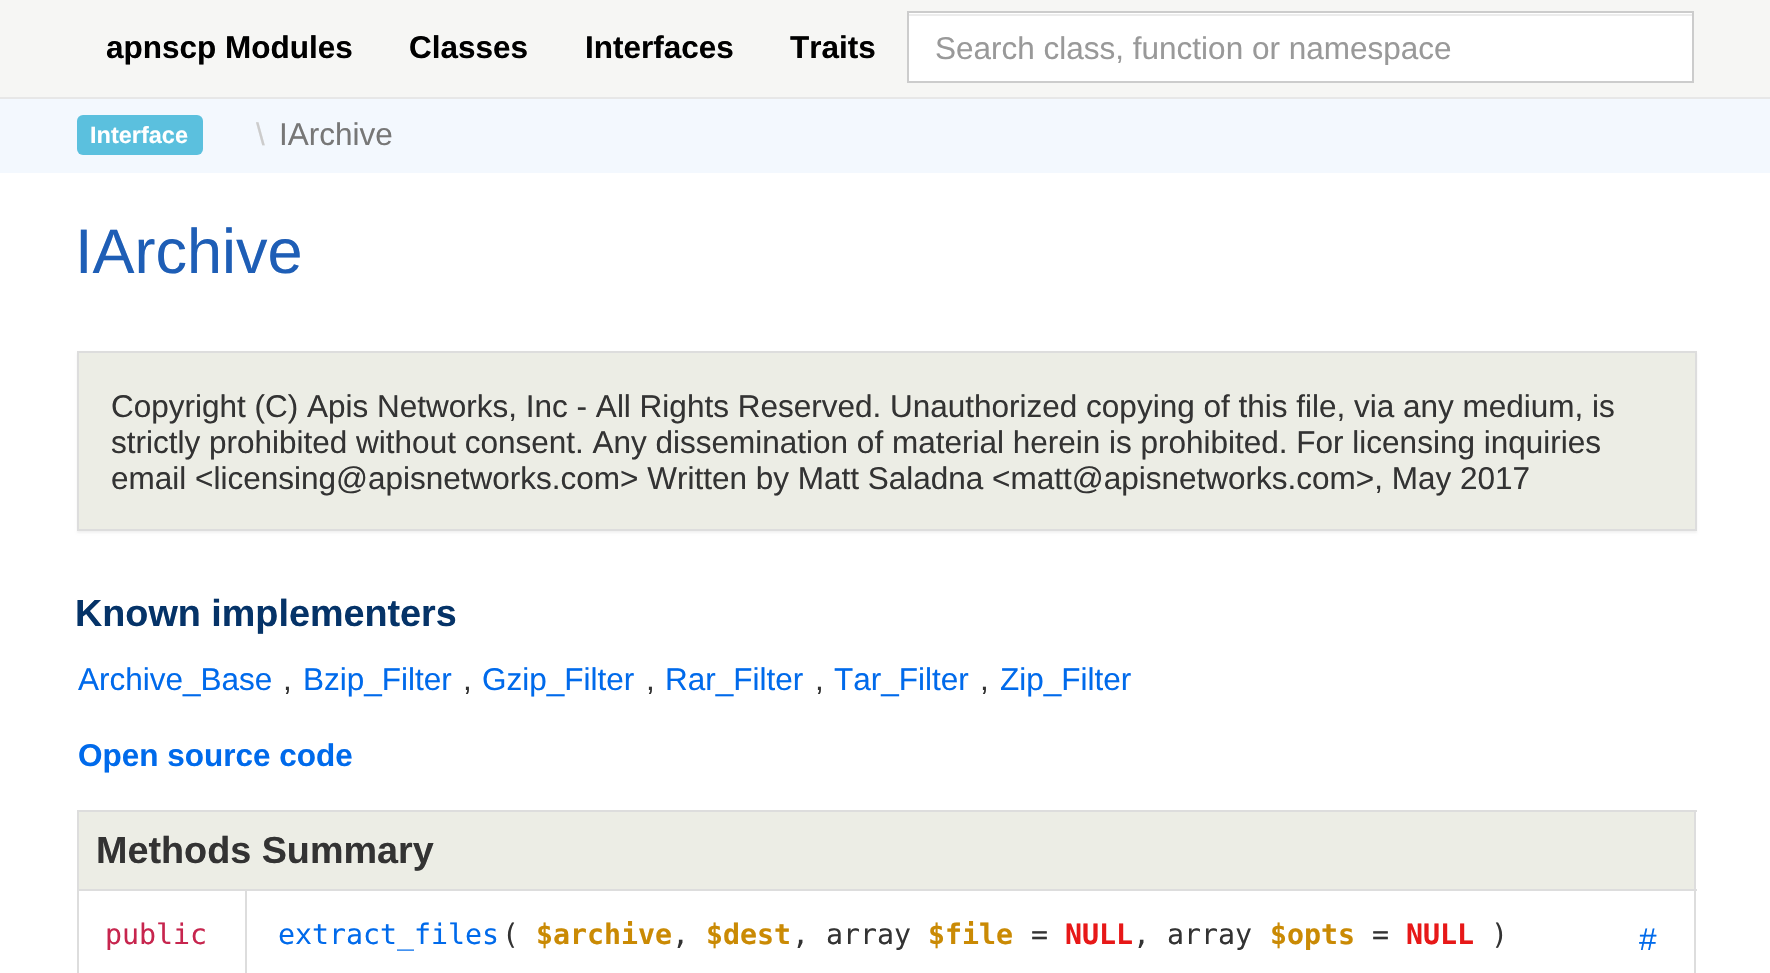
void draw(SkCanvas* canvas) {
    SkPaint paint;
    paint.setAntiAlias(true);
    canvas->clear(0xFFFFFFFF);
    paint.setColor(0xFFF6F6F4);
    canvas->drawRect(SkRect::MakeXYWH(0, 0, 1770, 97), paint);
    paint.setColor(0xFFE7E7E7);
    canvas->drawRect(SkRect::MakeXYWH(0, 97, 1770, 2), paint);
    SkFont font1(fontMgr->matchFamilyStyle("Liberation Sans", SkFontStyle::Bold()), 31.5f);
    font1.setSubpixel(true);
    paint.setColor(0xFF000000);
    canvas->drawString("apnscp Modules", 106, 58, font1, paint);
    canvas->drawString("Classes", 409, 58, font1, paint);
    canvas->drawString("Interfaces", 585, 58, font1, paint);
    canvas->drawString("Traits", 790, 58, font1, paint);
    paint.setColor(0xFFFFFFFF);
    canvas->drawRect(SkRect::MakeXYWH(909, 13, 783, 68), paint);
    paint.setColor(0xFFECECEC);
    canvas->drawRect(SkRect::MakeXYWH(909, 14, 783, 2), paint);
    paint.setStyle(SkPaint::kStroke_Style);
    paint.setStrokeWidth(2);
    paint.setColor(0xFFCCCCCC);
    canvas->drawRect(SkRect::MakeXYWH(908, 12, 785, 70), paint);
    canvas->save();
    canvas->clipRect(SkRect::MakeXYWH(936, 29, 729, 36));
    SkFont font2(fontMgr->matchFamilyStyle("Liberation Sans", SkFontStyle::Normal()), 31.5f);
    font2.setSubpixel(true);
    paint.setStyle(SkPaint::kFill_Style);
    paint.setColor(0xFF999999);
    canvas->drawString("Search class, function or namespace", 935, 59, font2, paint);
    canvas->restore();
    paint.setColor(0xFFF3F8FE);
    canvas->drawRect(SkRect::MakeXYWH(0, 99, 1770, 74), paint);
    paint.setColor(0xFF5BC0DE);
    canvas->drawRoundRect(SkRect::MakeXYWH(77, 115, 126, 40), 6, 6, paint);
    SkFont font3(fontMgr->matchFamilyStyle("Liberation Sans", SkFontStyle::Bold()), 23.5f);
    font3.setSubpixel(true);
    paint.setColor(0xFFFFFFFF);
    canvas->drawString("Interface", 90, 143, font3, paint);
    paint.setColor(0xFFCCCCCC);
    canvas->drawString("\\", 256, 145, font2, paint);
    paint.setColor(0xFF777777);
    canvas->drawString("IArchive", 279, 145, font2, paint);
    SkFont font4(fontMgr->matchFamilyStyle("Liberation Sans", SkFontStyle::Normal()), 63);
    font4.setSubpixel(true);
    paint.setColor(0xFF1E5EB6);
    canvas->drawString("IArchive", 75, 273, font4, paint);
    paint.setColor(0x0D000000);
    paint.setMaskFilter(SkMaskFilter::MakeBlur(kNormal_SkBlurStyle, 1));
    canvas->drawRect(SkRect::MakeXYWH(77, 353, 1620, 180), paint);
    paint.setMaskFilter(nullptr);
    paint.setColor(0xFFECEDE5);
    canvas->drawRect(SkRect::MakeXYWH(78, 352, 1618, 178), paint);
    paint.setStyle(SkPaint::kStroke_Style);
    paint.setColor(0xFFDDDDDD);
    canvas->drawRect(SkRect::MakeXYWH(78, 352, 1618, 178), paint);
    paint.setStyle(SkPaint::kFill_Style);
    paint.setColor(0xFF333333);
    canvas->drawString("Copyright (C) Apis Networks, Inc - All Rights Reserved. Unauthorized copying of this file, via any medium, is", 111, 417, font2, paint);
    canvas->drawString("strictly prohibited without consent. Any dissemination of material herein is prohibited. For licensing inquiries", 111, 453, font2, paint);
    canvas->drawString("email <licensing@apisnetworks.com> Written by Matt Saladna <matt@apisnetworks.com>, May 2017", 111, 489, font2, paint);
    SkFont font5(fontMgr->matchFamilyStyle("Liberation Sans", SkFontStyle::Bold()), 37.75f);
    font5.setSubpixel(true);
    paint.setColor(0xFF053368);
    canvas->drawString("Known implementers", 75, 626, font5, paint);
    paint.setColor(0xFF006AEB);
    canvas->drawString("Archive_Base", 78, 690, font2, paint);
    paint.setColor(0xFF333333);
    canvas->drawString(",", 283, 690, font2, paint);
    paint.setColor(0xFF006AEB);
    canvas->drawString("Bzip_Filter", 303, 690, font2, paint);
    paint.setColor(0xFF333333);
    canvas->drawString(",", 463, 690, font2, paint);
    paint.setColor(0xFF006AEB);
    canvas->drawString("Gzip_Filter", 482, 690, font2, paint);
    paint.setColor(0xFF333333);
    canvas->drawString(",", 646, 690, font2, paint);
    paint.setColor(0xFF006AEB);
    canvas->drawString("Rar_Filter", 665, 690, font2, paint);
    paint.setColor(0xFF333333);
    canvas->drawString(",", 815, 690, font2, paint);
    paint.setColor(0xFF006AEB);
    canvas->drawString("Tar_Filter", 834, 690, font2, paint);
    paint.setColor(0xFF333333);
    canvas->drawString(",", 980, 690, font2, paint);
    paint.setColor(0xFF006AEB);
    canvas->drawString("Zip_Filter", 1000, 690, font2, paint);
    canvas->drawString("Open source code", 78, 766, font1, paint);
    paint.setColor(0xFFDDDDDD);
    canvas->drawRect(SkRect::MakeXYWH(77, 810, 1620, 2), paint);
    canvas->drawRect(SkRect::MakeXYWH(1694, 810, 2, 163), paint);
    canvas->drawRect(SkRect::MakeXYWH(77, 810, 2, 163), paint);
    paint.setColor(0xFFECEDE5);
    canvas->drawRect(SkRect::MakeXYWH(79, 812, 1615, 77), paint);
    paint.setColor(0xFF333333);
    canvas->drawString("Methods Summary", 96, 863, font5, paint);
    paint.setColor(0xFFDDDDDD);
    canvas->drawRect(SkRect::MakeXYWH(245, 889, 1452, 2), paint);
    canvas->drawRect(SkRect::MakeXYWH(245, 889, 2, 84), paint);
    canvas->drawRect(SkRect::MakeXYWH(77, 889, 171, 2), paint);
    SkFont font6(fontMgr->matchFamilyStyle("DejaVu Sans Mono", SkFontStyle::Normal()), 28.25f);
    font6.setSubpixel(true);
    paint.setColor(0xFFC7254E);
    canvas->drawString("public", 105, 944, font6, paint);
    paint.setColor(0xFF006AEB);
    canvas->drawString("extract_files", 278, 944, font6, paint);
    paint.setColor(0xFF333333);
    canvas->drawString("(", 502, 944, font6, paint);
    SkFont font7(fontMgr->matchFamilyStyle("DejaVu Sans Mono", SkFontStyle::Bold()), 28.25f);
    font7.setSubpixel(true);
    paint.setColor(0xFFCA8A04);
    canvas->drawString("$archive", 536, 944, font7, paint);
    paint.setColor(0xFF333333);
    canvas->drawString(",", 672, 944, font6, paint);
    paint.setColor(0xFFCA8A04);
    canvas->drawString("$dest", 706, 944, font7, paint);
    paint.setColor(0xFF333333);
    canvas->drawString(", array", 792, 944, font6, paint);
    paint.setColor(0xFFCA8A04);
    canvas->drawString("$file", 928, 944, font7, paint);
    paint.setColor(0xFF333333);
    canvas->drawString("=", 1031, 944, font6, paint);
    paint.setColor(0xFFE71818);
    canvas->drawString("NULL", 1065, 944, font7, paint);
    paint.setColor(0xFF333333);
    canvas->drawString(", array", 1133, 944, font6, paint);
    paint.setColor(0xFFCA8A04);
    canvas->drawString("$opts", 1270, 944, font7, paint);
    paint.setColor(0xFF333333);
    canvas->drawString("=", 1372, 944, font6, paint);
    paint.setColor(0xFFE71818);
    canvas->drawString("NULL", 1406, 944, font7, paint);
    paint.setColor(0xFF333333);
    canvas->drawString(")", 1491, 944, font6, paint);
    paint.setColor(0xFF006AEB);
    canvas->drawString("#", 1639, 950, font2, paint);
}
